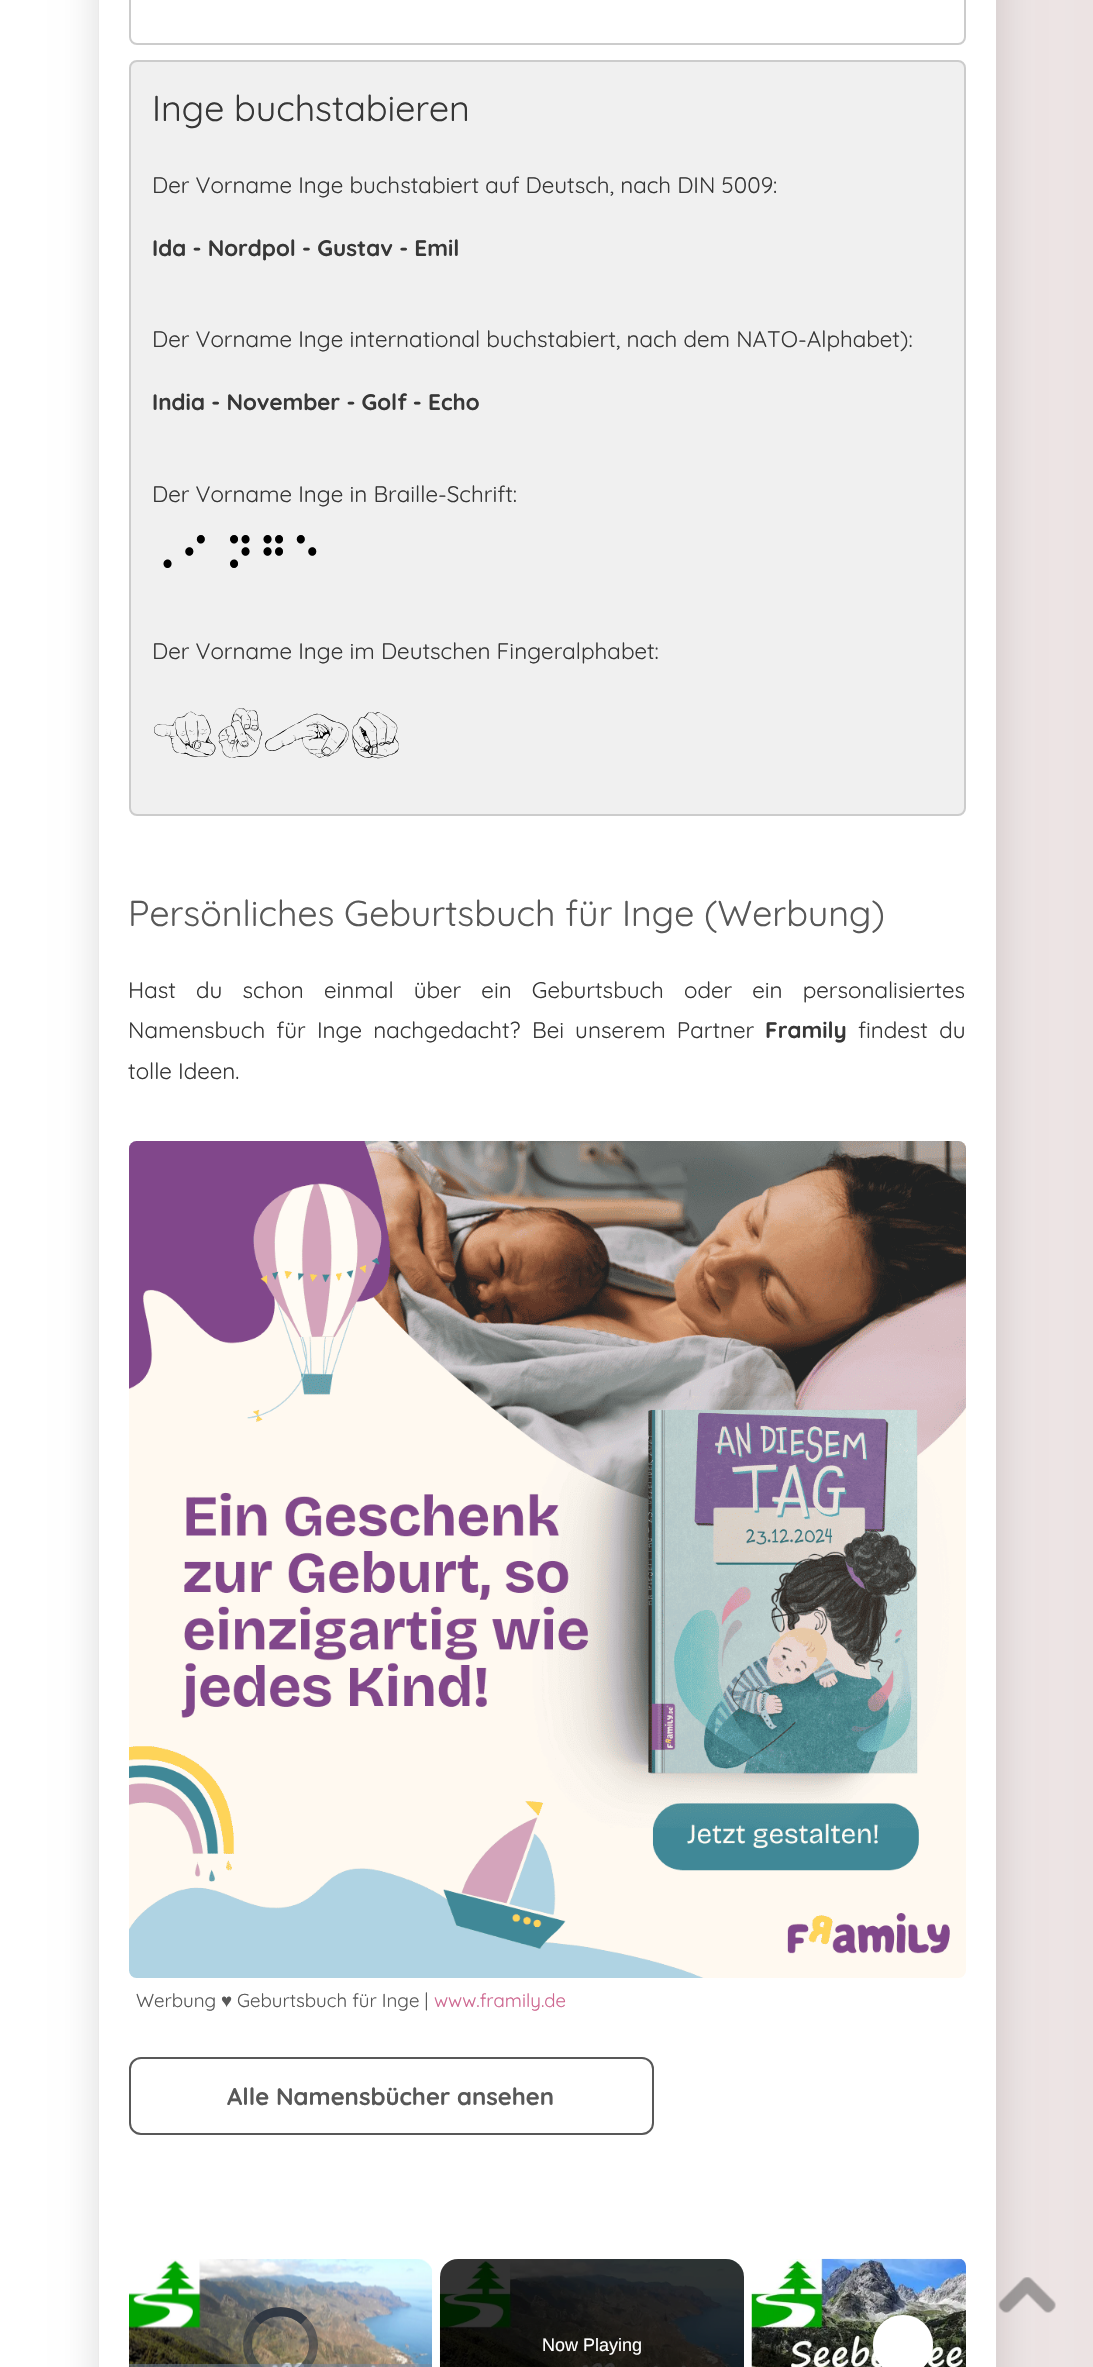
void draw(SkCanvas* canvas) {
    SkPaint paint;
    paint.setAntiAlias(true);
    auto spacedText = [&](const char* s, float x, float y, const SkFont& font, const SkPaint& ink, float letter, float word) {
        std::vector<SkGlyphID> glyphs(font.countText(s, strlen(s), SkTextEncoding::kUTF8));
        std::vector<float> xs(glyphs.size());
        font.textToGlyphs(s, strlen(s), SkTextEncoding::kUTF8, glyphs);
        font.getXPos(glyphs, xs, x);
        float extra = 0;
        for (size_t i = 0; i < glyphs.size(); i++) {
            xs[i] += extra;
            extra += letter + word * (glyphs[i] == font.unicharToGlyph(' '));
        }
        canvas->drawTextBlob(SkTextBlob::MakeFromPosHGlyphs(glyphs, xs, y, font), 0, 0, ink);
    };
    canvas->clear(0xFFFFFFFF);
    {
        const SkColor colors[] = {0xFFFFFFFF, 0xFFECE3E3};
        const float stops[] = {0, 1};
        const SkPoint ends[] = {{0, -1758}, {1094, -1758}};
        paint.setShader(SkGradientShader::MakeLinear(ends, colors, stops, 2, SkTileMode::kClamp));
        paint.setAlpha(255);
    }
    canvas->drawRect(SkRect::MakeXYWH(98, 0, 995, 2367), paint);
    paint.setShader(nullptr);
    paint.setColor(0x1A000000);
    paint.setMaskFilter(SkMaskFilter::MakeBlur(kNormal_SkBlurStyle, 15));
    canvas->drawRect(SkRect::MakeXYWH(92, -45, 912, 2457), paint);
    paint.setMaskFilter(nullptr);
    paint.setColor(0xFFFFFFFF);
    canvas->drawRect(SkRect::MakeXYWH(99, 0, 897, 2367), paint);
    paint.setStyle(SkPaint::kStroke_Style);
    paint.setStrokeWidth(2);
    paint.setColor(0xFFCCCCCC);
    canvas->drawRoundRect(SkRect::MakeXYWH(130, -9, 835, 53), 7, 7, paint);
    paint.setStyle(SkPaint::kFill_Style);
    paint.setColor(0xFFF0F0F0);
    canvas->drawRoundRect(SkRect::MakeXYWH(130, 61, 835, 754), 7, 7, paint);
    paint.setStyle(SkPaint::kStroke_Style);
    paint.setColor(0xFFCCCCCC);
    canvas->drawRoundRect(SkRect::MakeXYWH(130, 61, 835, 754), 7, 7, paint);
    SkFont font1(fontMgr->matchFamilyStyle("Quicksand", SkFontStyle::Normal()), 36);
    font1.setSubpixel(true);
    paint.setStyle(SkPaint::kFill_Style);
    paint.setColor(0xFF373737);
    canvas->drawString("Inge buchstabieren", 152, 121, font1, paint);
    SkFont font2(fontMgr->matchFamilyStyle("Quicksand", SkFontStyle::Normal()), 22.5f);
    font2.setSubpixel(true);
    canvas->drawString("Der Vorname Inge buchstabiert auf Deutsch, nach DIN 5009:", 152, 193, font2, paint);
    SkFont font3(fontMgr->matchFamilyStyle("Quicksand", SkFontStyle::Bold()), 22.5f);
    font3.setSubpixel(true);
    canvas->drawString("Ida - Nordpol - Gustav - Emil", 152, 256, font3, paint);
    canvas->drawString("Der Vorname Inge international buchstabiert, nach dem NATO-Alphabet):", 152, 347, font2, paint);
    canvas->drawString("India - November - Golf - Echo", 152, 410, font3, paint);
    canvas->drawString("Der Vorname Inge in Braille-Schrift:", 152, 502, font2, paint);
    SkFont font4(fontMgr->matchFamilyStyle("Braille", SkFontStyle::Normal()), 36);
    font4.setSubpixel(true);
    paint.setColor(0xFF000000);
    canvas->drawString("Inge", 152, 568, font4, paint);
    paint.setColor(0xFF373737);
    canvas->drawString("Der Vorname Inge im Deutschen Fingeralphabet:", 152, 659, font2, paint);
    SkFont font5(fontMgr->matchFamilyStyle("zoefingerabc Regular", SkFontStyle::Normal()), 90);
    font5.setSubpixel(true);
    paint.setColor(0xFF000000);
    canvas->drawString("Inge", 152, 758, font5, paint);
    paint.setColor(0xFF585858);
    canvas->drawString("Persönliches Geburtsbuch für Inge (Werbung)", 128, 926, font1, paint);
    paint.setColor(0xFF373737);
    spacedText("Hast du schon einmal über ein Geburtsbuch oder ein personalisiertes", 128, 998, font2, paint, 0, 14);
    spacedText("Namensbuch für Inge nachgedacht?", 128, 1038, font2, paint, 0, 5);
    spacedText("Bei unserem Partner", 532, 1038, font2, paint, 0, 5);
    canvas->drawString("Framily", 765, 1038, font3, paint);
    spacedText("findest du", 858, 1038, font2, paint, 0, 5);
    canvas->drawString("tolle Ideen.", 128, 1079, font2, paint);
    canvas->drawImageRect(SkImages::DeferredFromEncodedData(SkData::MakeFromFileName("img1.png")), SkRect::MakeXYWH(129, 1141, 837, 837), SkSamplingOptions());
    SkFont font6(fontMgr->matchFamilyStyle("Quicksand", SkFontStyle::Normal()), 18.75f);
    font6.setSubpixel(true);
    paint.setColor(0xFF585858);
    canvas->drawString("Werbung", 136, 2007, font6, paint);
    SkFont font7(fontMgr->matchFamilyStyle("Liberation Sans", SkFontStyle::Normal()), 18.75f);
    font7.setSubpixel(true);
    canvas->drawString("♥", 221, 2007, font7, paint);
    canvas->drawString("Geburtsbuch für Inge |", 237, 2007, font6, paint);
    paint.setColor(0xFFCE6790);
    canvas->drawString("www.framily.de", 434, 2007, font6, paint);
    paint.setStyle(SkPaint::kStroke_Style);
    paint.setColor(0xFF585858);
    canvas->drawRoundRect(SkRect::MakeXYWH(130, 2058, 523, 76), 11, 11, paint);
    SkFont font8(fontMgr->matchFamilyStyle("Quicksand", SkFontStyle::Bold()), 24);
    font8.setSubpixel(true);
    paint.setStyle(SkPaint::kFill_Style);
    canvas->drawString("Alle Namensbücher ansehen", 227, 2105, font8, paint);
    canvas->drawImageRect(SkImages::DeferredFromEncodedData(SkData::MakeFromFileName("img2.png")), SkRect::MakeXYWH(129, 2259, 303, 108), SkSamplingOptions());
    paint.setStyle(SkPaint::kStroke_Style);
    paint.setStrokeWidth(9);
    paint.setColor(0x962B333F);
    canvas->drawCircle(280.5f, 2344.5f, 33, paint);
    canvas->drawPath(SkPathBuilder().moveTo(257, 2321).cubicTo(270, 2308.5f, 291, 2308.5f, 304, 2321).detach(), paint);
    canvas->drawPath(SkPathBuilder().moveTo(257, 2321).cubicTo(270, 2308.5f, 291, 2308.5f, 304, 2321).detach(), paint);
    paint.setStyle(SkPaint::kFill_Style);
    paint.setColor(0x8073859F);
    canvas->drawRect(SkRect::MakeXYWH(129, 2364, 303, 3), paint);
    paint.setColor(0xFF000000);
    canvas->drawRoundRect(SkRect::MakeXYWH(440, 2259, 304, 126), 18, 18, paint);
    canvas->drawImageRect(SkImages::DeferredFromEncodedData(SkData::MakeFromFileName("img3.png")), SkRect::MakeXYWH(439, 2259, 305, 108), SkSamplingOptions());
    SkFont font9(fontMgr->matchFamilyStyle("Liberation Sans", SkFontStyle::Normal()), 18);
    font9.setSubpixel(true);
    paint.setColor(0xFFFFFFFF);
    canvas->drawString("Now Playing", 542, 2351, font9, paint);
    canvas->drawImageRect(SkImages::DeferredFromEncodedData(SkData::MakeFromFileName("img4.png")), SkRect::MakeXYWH(751, 2258, 215, 109), SkSamplingOptions());
    canvas->drawPath(SkPathBuilder().moveTo(903, 2315).cubicTo(886, 2315, 873, 2328, 873, 2345).cubicTo(873, 2362, 886, 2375, 903, 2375).cubicTo(920, 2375, 933, 2362, 933, 2345).cubicTo(933, 2328, 920, 2315, 903, 2315).close().detach(), paint);
    canvas->drawImageRect(SkImages::DeferredFromEncodedData(SkData::MakeFromFileName("img5.png")), SkRect::MakeXYWH(998, 2277, 58, 36), SkSamplingOptions());
}
